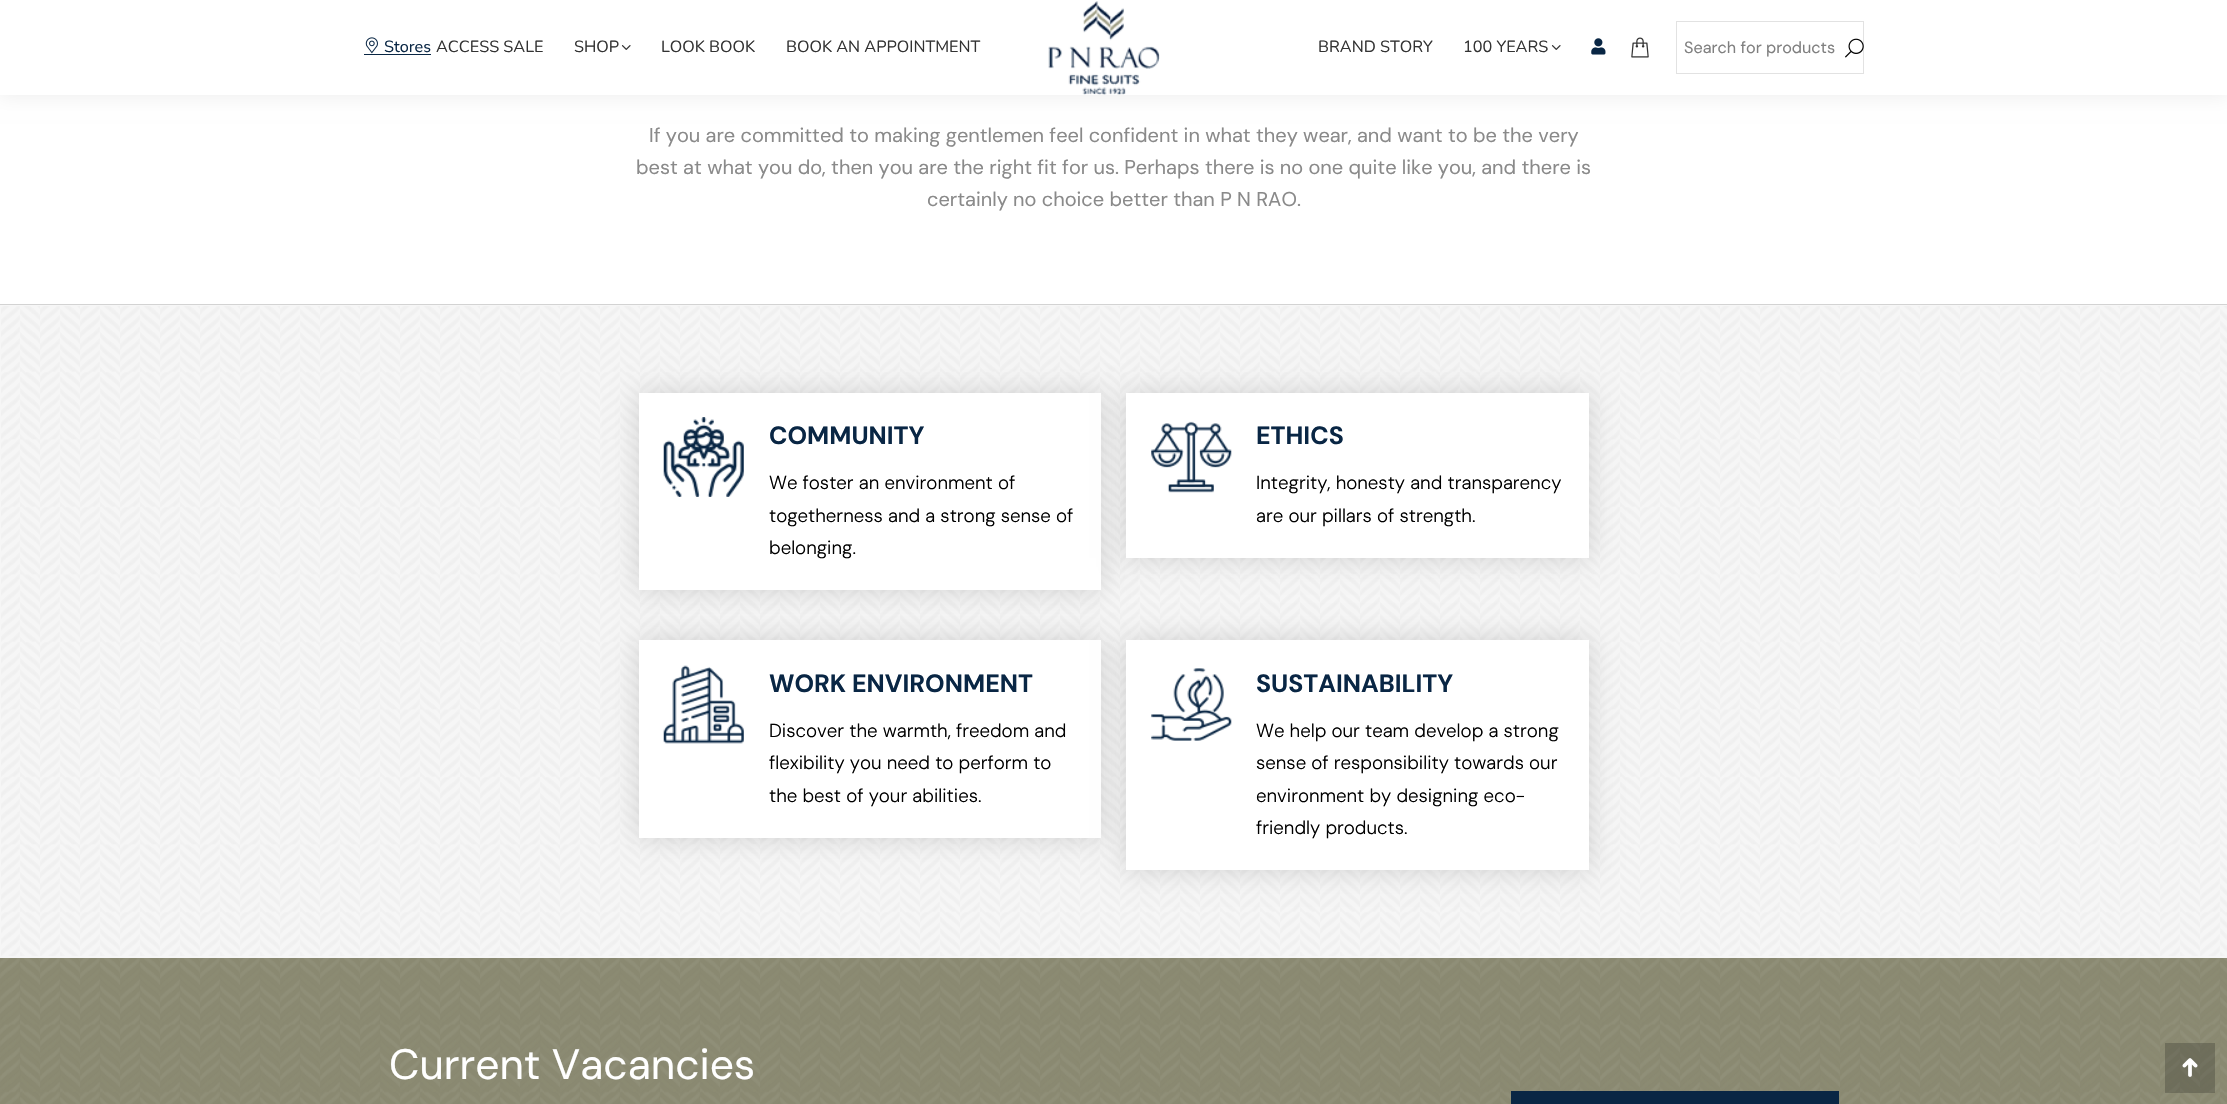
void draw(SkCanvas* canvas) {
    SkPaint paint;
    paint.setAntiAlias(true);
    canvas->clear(0xFFFFFFFF);
    paint.setColor(0x12000000);
    paint.setMaskFilter(SkMaskFilter::MakeBlur(kNormal_SkBlurStyle, 9.5f));
    canvas->drawRect(SkRect::MakeXYWH(-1, -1, 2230, 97), paint);
    paint.setMaskFilter(nullptr);
    paint.setColor(0xFFFFFFFF);
    canvas->drawRect(SkRect::MakeXYWH(0, 0, 2227, 95), paint);
    canvas->drawImageRect(SkImages::DeferredFromEncodedData(SkData::MakeFromFileName("img1.png")), SkRect::MakeXYWH(365, 37, 13, 17), SkSamplingOptions());
    SkFont font1(fontMgr->matchFamilyStyle("Nunito", SkFontStyle::Normal()), 16.25f);
    font1.setSubpixel(true);
    paint.setColor(0xFF092644);
    canvas->drawString("Stores", 384, 52, font1, paint);
    canvas->drawRect(SkRect::MakeXYWH(364, 54, 67, 1), paint);
    paint.setColor(0xFF333333);
    canvas->drawString("ACCESS SALE", 436, 52, font1, paint);
    canvas->drawString("SHOP", 574, 52, font1, paint);
    canvas->drawImageRect(SkImages::DeferredFromEncodedData(SkData::MakeFromFileName("img2.png")), SkRect::MakeXYWH(621, 45, 10, 5), SkSamplingOptions());
    canvas->drawString("LOOK BOOK", 661, 52, font1, paint);
    canvas->drawString("BOOK AN APPOINTMENT", 786, 52, font1, paint);
    canvas->drawImageRect(SkImages::DeferredFromEncodedData(SkData::MakeFromFileName("img3.png")), SkRect::MakeXYWH(1048, 1, 112, 94), SkSamplingOptions());
    canvas->drawString("BRAND STORY", 1318, 52, font1, paint);
    canvas->drawString("100 YEARS", 1463, 52, font1, paint);
    canvas->drawImageRect(SkImages::DeferredFromEncodedData(SkData::MakeFromFileName("img2.png")), SkRect::MakeXYWH(1551, 45, 10, 5), SkSamplingOptions());
    canvas->drawImageRect(SkImages::DeferredFromEncodedData(SkData::MakeFromFileName("img4.png")), SkRect::MakeXYWH(1591, 38, 15, 17), SkSamplingOptions());
    canvas->drawImageRect(SkImages::DeferredFromEncodedData(SkData::MakeFromFileName("img5.png")), SkRect::MakeXYWH(1631, 37, 18, 21), SkSamplingOptions());
    paint.setStyle(SkPaint::kStroke_Style);
    paint.setStrokeWidth(1);
    paint.setColor(0xFFE2E2E2);
    canvas->drawRect(SkRect::MakeXYWH(1676.5f, 21.5f, 187, 52), paint);
    SkFont font2(fontMgr->matchFamilyStyle("DM Sans", SkFontStyle::Normal()), 16.25f);
    font2.setSubpixel(true);
    paint.setStyle(SkPaint::kFill_Style);
    paint.setColor(0xFF808080);
    canvas->drawString("Search for products", 1684, 53, font2, paint);
    canvas->drawImageRect(SkImages::DeferredFromEncodedData(SkData::MakeFromFileName("img6.png")), SkRect::MakeXYWH(1845, 38, 19, 20), SkSamplingOptions());
    SkFont font3(fontMgr->matchFamilyStyle("DM Sans", SkFontStyle::Normal()), 20);
    font3.setSubpixel(true);
    paint.setColor(0xFF8A8A8A);
    canvas->drawString("If you are committed to making gentlemen feel confident in what they wear, and want to be the very", 649, 142, font3, paint);
    canvas->drawString("best at what you do, then you are the right fit for us. Perhaps there is no one quite like you, and there is", 636, 174, font3, paint);
    canvas->drawString("certainly no choice better than P N RAO.", 927, 206, font3, paint);
    paint.setColor(0xFFF6F6F6);
    canvas->drawRect(SkRect::MakeXYWH(0, 305, 2227, 653), paint);
    paint.setColor(0xFFD3D3D3);
    canvas->drawRect(SkRect::MakeXYWH(0, 304, 2227, 1), paint);
    canvas->drawImageRect(SkImages::DeferredFromEncodedData(SkData::MakeFromFileName("img7.png")), SkRect::MakeXYWH(1, 306, 2226, 650), SkSamplingOptions());
    paint.setColor(0x26000000);
    paint.setMaskFilter(SkMaskFilter::MakeBlur(kNormal_SkBlurStyle, 12.5f));
    canvas->drawRect(SkRect::MakeXYWH(639, 393, 462, 197), paint);
    paint.setMaskFilter(nullptr);
    paint.setColor(0xFFFFFFFF);
    canvas->drawRect(SkRect::MakeXYWH(639, 393, 462, 197), paint);
    canvas->drawImageRect(SkImages::DeferredFromEncodedData(SkData::MakeFromFileName("img8.png")), SkRect::MakeXYWH(663, 417, 81, 80), SkSamplingOptions());
    SkFont font4(fontMgr->matchFamilyStyle("DM Sans", SkFontStyle::Bold()), 25);
    font4.setSubpixel(true);
    paint.setColor(0xFF092644);
    canvas->drawString("COMMUNITY", 769, 444, font4, paint);
    SkFont font5(fontMgr->matchFamilyStyle("DM Sans", SkFontStyle(300, SkFontStyle::kNormal_Width, SkFontStyle::kUpright_Slant)), 18.75f);
    font5.setSubpixel(true);
    paint.setColor(0xFF000000);
    canvas->drawString("We foster an environment of", 769, 489, font5, paint);
    canvas->drawString("togetherness and a strong sense of", 769, 522, font5, paint);
    canvas->drawString("belonging.", 769, 554, font5, paint);
    paint.setColor(0x26000000);
    paint.setMaskFilter(SkMaskFilter::MakeBlur(kNormal_SkBlurStyle, 12.5f));
    canvas->drawRect(SkRect::MakeXYWH(1126, 393, 463, 165), paint);
    paint.setMaskFilter(nullptr);
    paint.setColor(0xFFFFFFFF);
    canvas->drawRect(SkRect::MakeXYWH(1126, 393, 463, 165), paint);
    canvas->drawImageRect(SkImages::DeferredFromEncodedData(SkData::MakeFromFileName("img9.png")), SkRect::MakeXYWH(1151, 421, 81, 72), SkSamplingOptions());
    paint.setColor(0xFF092644);
    canvas->drawString("ETHICS", 1256, 444, font4, paint);
    paint.setColor(0xFF000000);
    canvas->drawString("Integrity, honesty and transparency", 1256, 489, font5, paint);
    canvas->drawString("are our pillars of strength.", 1256, 522, font5, paint);
    paint.setColor(0x26000000);
    paint.setMaskFilter(SkMaskFilter::MakeBlur(kNormal_SkBlurStyle, 12.5f));
    canvas->drawRect(SkRect::MakeXYWH(639, 640, 462, 198), paint);
    paint.setMaskFilter(nullptr);
    paint.setColor(0xFFFFFFFF);
    canvas->drawRect(SkRect::MakeXYWH(639, 640, 462, 198), paint);
    canvas->drawImageRect(SkImages::DeferredFromEncodedData(SkData::MakeFromFileName("img10.png")), SkRect::MakeXYWH(663, 665, 81, 79), SkSamplingOptions());
    paint.setColor(0xFF092644);
    canvas->drawString("WORK ENVIRONMENT", 769, 692, font4, paint);
    paint.setColor(0xFF000000);
    canvas->drawString("Discover the warmth, freedom and", 769, 737, font5, paint);
    canvas->drawString("flexibility you need to perform to", 769, 769, font5, paint);
    canvas->drawString("the best of your abilities.", 769, 802, font5, paint);
    paint.setColor(0x26000000);
    paint.setMaskFilter(SkMaskFilter::MakeBlur(kNormal_SkBlurStyle, 12.5f));
    canvas->drawRect(SkRect::MakeXYWH(1126, 640, 463, 230), paint);
    paint.setMaskFilter(nullptr);
    paint.setColor(0xFFFFFFFF);
    canvas->drawRect(SkRect::MakeXYWH(1126, 640, 463, 230), paint);
    canvas->drawImageRect(SkImages::DeferredFromEncodedData(SkData::MakeFromFileName("img11.png")), SkRect::MakeXYWH(1151, 668, 81, 73), SkSamplingOptions());
    paint.setColor(0xFF092644);
    canvas->drawString("SUSTAINABILITY", 1256, 692, font4, paint);
    paint.setColor(0xFF000000);
    canvas->drawString("We help our team develop a strong", 1256, 737, font5, paint);
    canvas->drawString("sense of responsibility towards our", 1256, 769, font5, paint);
    canvas->drawString("environment by designing eco-", 1256, 802, font5, paint);
    canvas->drawString("friendly products.", 1256, 834, font5, paint);
    paint.setColor(0xFF8A8971);
    canvas->drawRect(SkRect::MakeXYWH(0, 958, 2227, 146), paint);
    canvas->drawImageRect(SkImages::DeferredFromEncodedData(SkData::MakeFromFileName("img12.png")), SkRect::MakeXYWH(0, 958, 2227, 146), SkSamplingOptions());
    SkFont font6(fontMgr->matchFamilyStyle("DM Sans", SkFontStyle::Normal()), 42.5f);
    font6.setSubpixel(true);
    paint.setColor(0xFFFFFFFF);
    canvas->drawString("Current Vacancies", 389, 1079, font6, paint);
    paint.setColor(0xFF092644);
    canvas->drawRect(SkRect::MakeXYWH(1511, 1091, 328, 13), paint);
    paint.setColor(0x33000000);
    canvas->drawRect(SkRect::MakeXYWH(2165, 1043, 50, 50), paint);
    canvas->drawImageRect(SkImages::DeferredFromEncodedData(SkData::MakeFromFileName("img13.png")), SkRect::MakeXYWH(2182, 1058, 16, 19), SkSamplingOptions());
}
